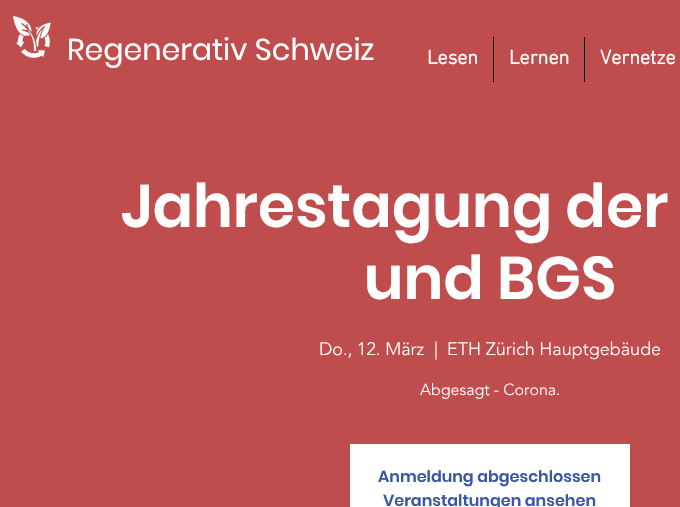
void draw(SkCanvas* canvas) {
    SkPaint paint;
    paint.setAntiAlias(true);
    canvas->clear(0xFFBF4D4D);
    canvas->drawImageRect(SkImages::DeferredFromEncodedData(SkData::MakeFromFileName("img1.png")), SkRect::MakeXYWH(13, 16, 38, 42), SkSamplingOptions());
    SkFont font1(fontMgr->matchFamilyStyle("Poppins", SkFontStyle::Normal()), 30);
    font1.setSubpixel(true);
    paint.setColor(0xFFFFFFFF);
    canvas->drawString("Regenerativ Schweiz", 67, 60, font1, paint);
    SkFont font2(fontMgr->matchFamilyStyle("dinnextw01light", SkFontStyle::Bold()), 20);
    font2.setSubpixel(true);
    canvas->drawString("Lesen", 427, 64, font2, paint);
    paint.setColor(0xFF000000);
    canvas->drawRect(SkRect::MakeXYWH(493, 37, 1, 45), paint);
    paint.setColor(0xFFFFFFFF);
    canvas->drawString("Lernen", 509, 64, font2, paint);
    paint.setColor(0xFF000000);
    canvas->drawRect(SkRect::MakeXYWH(584, 37, 1, 45), paint);
    paint.setColor(0xFFFFFFFF);
    canvas->drawString("Vernetze", 600, 64, font2, paint);
    SkFont font3(fontMgr->matchFamilyStyle("Poppins", SkFontStyle(600, SkFontStyle::kNormal_Width, SkFontStyle::kUpright_Slant)), 60);
    font3.setSubpixel(true);
    canvas->drawString("Jahrestagung der", 121, 227, font3, paint);
    canvas->drawString("und BGS", 364, 299, font3, paint);
    SkFont font4(fontMgr->matchFamilyStyle("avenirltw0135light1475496", SkFontStyle(300, SkFontStyle::kNormal_Width, SkFontStyle::kUpright_Slant)), 18);
    font4.setSubpixel(true);
    canvas->drawString("Do., 12. März", 319, 355, font4, paint);
    canvas->drawString("|", 434, 355, font4, paint);
    canvas->drawString("ETH Zürich Hauptgebäude", 447, 355, font4, paint);
    SkFont font5(fontMgr->matchFamilyStyle("avenirltw0135light1475496", SkFontStyle(300, SkFontStyle::kNormal_Width, SkFontStyle::kUpright_Slant)), 16);
    font5.setSubpixel(true);
    canvas->drawString("Abgesagt - Corona.", 420, 395, font5, paint);
    canvas->drawRect(SkRect::MakeXYWH(350, 444, 280, 63), paint);
    SkFont font6(fontMgr->matchFamilyStyle("Poppins", SkFontStyle(600, SkFontStyle::kNormal_Width, SkFontStyle::kUpright_Slant)), 16);
    font6.setSubpixel(true);
    paint.setColor(0xFF3A57A6);
    canvas->drawString("Anmeldung abgeschlossen", 378, 482, font6, paint);
    canvas->drawString("Veranstaltungen ansehen", 383, 506, font6, paint);
}
